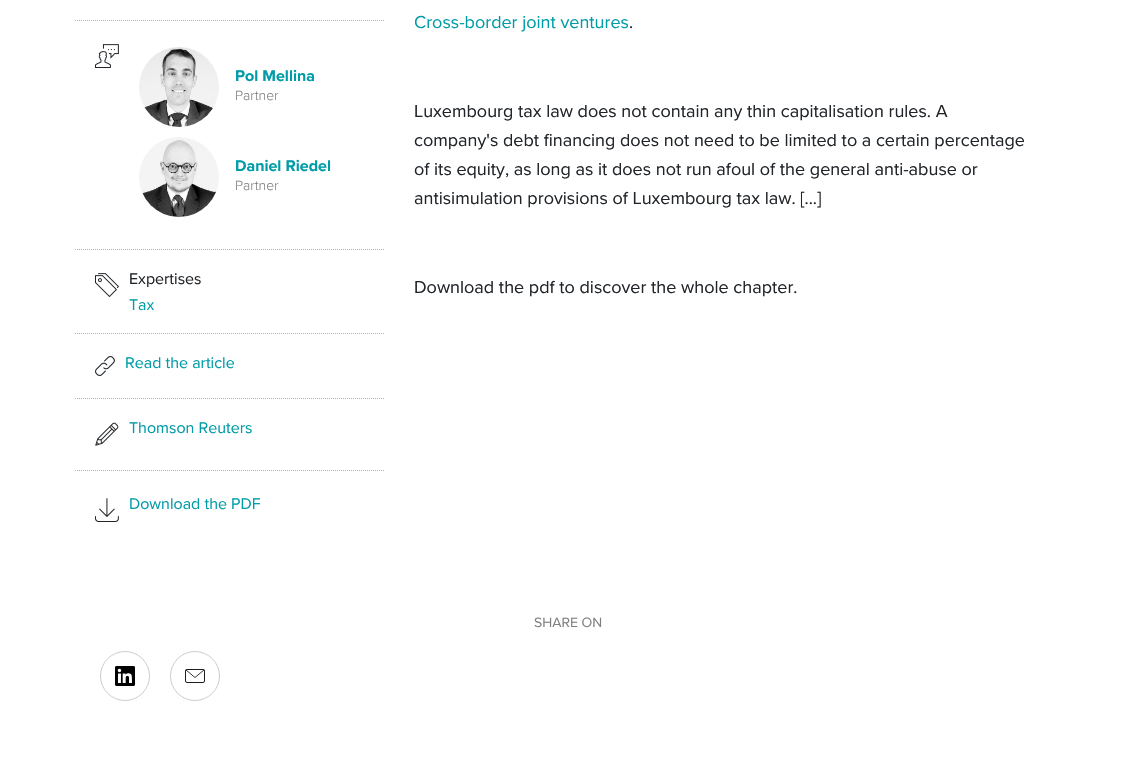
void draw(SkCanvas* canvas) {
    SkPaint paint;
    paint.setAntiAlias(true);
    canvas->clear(0xFFFFFFFF);
    paint.setStyle(SkPaint::kStroke_Style);
    paint.setStrokeWidth(1);
    paint.setColor(0xFFADB5BD);
    paint.setPathEffect(SkDashPathEffect::Make({{1, 1}}, 0));
    canvas->drawPath(SkPathBuilder().moveTo(75, 20.5f).lineTo(384, 20.5f).detach(), paint);
    paint.setPathEffect(nullptr);
    canvas->drawImageRect(SkImages::DeferredFromEncodedData(SkData::MakeFromFileName("img1.png")), SkRect::MakeXYWH(95, 44, 24, 24), SkSamplingOptions());
    canvas->drawImageRect(SkImages::DeferredFromEncodedData(SkData::MakeFromFileName("img2.png")), SkRect::MakeXYWH(139, 47, 80, 80), SkSamplingOptions());
    SkFont font1(fontMgr->matchFamilyStyle("Proxima Nova", SkFontStyle::Bold()), 16);
    font1.setSubpixel(true);
    paint.setStyle(SkPaint::kFill_Style);
    paint.setColor(0xFF009CA7);
    canvas->drawString("Pol Mellina", 235, 81, font1, paint);
    SkFont font2(fontMgr->matchFamilyStyle("Proxima Nova", SkFontStyle(300, SkFontStyle::kNormal_Width, SkFontStyle::kUpright_Slant)), 14);
    font2.setSubpixel(true);
    paint.setColor(0xFF808080);
    canvas->drawString("Partner", 235, 100, font2, paint);
    canvas->drawImageRect(SkImages::DeferredFromEncodedData(SkData::MakeFromFileName("img3.png")), SkRect::MakeXYWH(139, 137, 80, 80), SkSamplingOptions());
    paint.setColor(0xFF009CA7);
    canvas->drawString("Daniel Riedel", 235, 171, font1, paint);
    paint.setColor(0xFF808080);
    canvas->drawString("Partner", 235, 190, font2, paint);
    paint.setStyle(SkPaint::kStroke_Style);
    paint.setColor(0xFFADB5BD);
    paint.setPathEffect(SkDashPathEffect::Make({{1, 1}}, 0));
    canvas->drawPath(SkPathBuilder().moveTo(75, 249.5f).lineTo(384, 249.5f).detach(), paint);
    paint.setPathEffect(nullptr);
    canvas->drawImageRect(SkImages::DeferredFromEncodedData(SkData::MakeFromFileName("img4.png")), SkRect::MakeXYWH(95, 273, 24, 24), SkSamplingOptions());
    SkFont font3(fontMgr->matchFamilyStyle("Proxima Nova", SkFontStyle::Normal()), 16);
    font3.setSubpixel(true);
    paint.setStyle(SkPaint::kFill_Style);
    paint.setColor(0xFF212529);
    canvas->drawString("Expertises", 129, 284, font3, paint);
    paint.setColor(0xFF009CA7);
    canvas->drawString("Tax", 129, 310, font3, paint);
    paint.setStyle(SkPaint::kStroke_Style);
    paint.setColor(0xFFADB5BD);
    paint.setPathEffect(SkDashPathEffect::Make({{1, 1}}, 0));
    canvas->drawPath(SkPathBuilder().moveTo(75, 333.5f).lineTo(384, 333.5f).detach(), paint);
    paint.setPathEffect(nullptr);
    canvas->drawImageRect(SkImages::DeferredFromEncodedData(SkData::MakeFromFileName("img5.png")), SkRect::MakeXYWH(95, 356, 20, 20), SkSamplingOptions());
    paint.setStyle(SkPaint::kFill_Style);
    paint.setColor(0xFF009CA7);
    canvas->drawString("Read the article", 125, 368, font3, paint);
    paint.setStyle(SkPaint::kStroke_Style);
    paint.setColor(0xFFADB5BD);
    paint.setPathEffect(SkDashPathEffect::Make({{1, 1}}, 0));
    canvas->drawPath(SkPathBuilder().moveTo(75, 398.5f).lineTo(384, 398.5f).detach(), paint);
    paint.setPathEffect(nullptr);
    canvas->drawImageRect(SkImages::DeferredFromEncodedData(SkData::MakeFromFileName("img6.png")), SkRect::MakeXYWH(95, 422, 24, 24), SkSamplingOptions());
    paint.setStyle(SkPaint::kFill_Style);
    paint.setColor(0xFF009CA7);
    canvas->drawString("Thomson Reuters", 129, 433, font3, paint);
    paint.setStyle(SkPaint::kStroke_Style);
    paint.setColor(0xFFADB5BD);
    paint.setPathEffect(SkDashPathEffect::Make({{1, 1}}, 0));
    canvas->drawPath(SkPathBuilder().moveTo(75, 470.5f).lineTo(384, 470.5f).detach(), paint);
    paint.setPathEffect(nullptr);
    canvas->drawImageRect(SkImages::DeferredFromEncodedData(SkData::MakeFromFileName("img7.png")), SkRect::MakeXYWH(95, 498, 24, 24), SkSamplingOptions());
    paint.setStyle(SkPaint::kFill_Style);
    paint.setColor(0xFF009CA7);
    canvas->drawString("Download the PDF", 129, 509, font3, paint);
    SkFont font4(fontMgr->matchFamilyStyle("Proxima Nova", SkFontStyle::Normal()), 18);
    font4.setSubpixel(true);
    canvas->drawString("Cross-border joint ventures", 414, 28, font4, paint);
    paint.setColor(0xFF212529);
    canvas->drawString(".", 629, 28, font4, paint);
    canvas->drawString("Luxembourg tax law does not contain any thin capitalisation rules. A", 414, 117, font4, paint);
    canvas->drawString("company's debt financing does not need to be limited to a certain percentage", 414, 146, font4, paint);
    canvas->drawString("of its equity, as long as it does not run afoul of the general anti-abuse or", 414, 175, font4, paint);
    canvas->drawString("antisimulation provisions of Luxembourg tax law. [...]", 414, 204, font4, paint);
    canvas->drawString("Download the pdf to discover the whole chapter.", 414, 293, font4, paint);
    SkFont font5(fontMgr->matchFamilyStyle("Proxima Nova", SkFontStyle::Normal()), 14);
    font5.setSubpixel(true);
    paint.setColor(0xFF808080);
    canvas->drawString("SHARE ON", 534, 627, font5, paint);
    paint.setStyle(SkPaint::kStroke_Style);
    paint.setColor(0xFFCCCCCC);
    canvas->drawCircle(125, 676, 24.5f, paint);
    canvas->drawImageRect(SkImages::DeferredFromEncodedData(SkData::MakeFromFileName("img8.png")), SkRect::MakeXYWH(115, 666, 20, 20), SkSamplingOptions());
    canvas->drawCircle(195, 676, 24.5f, paint);
    paint.setColor(0xFF1D1D1B);
    canvas->drawRoundRect(SkRect::MakeXYWH(185.5f, 669.5f, 19, 13), 1.5f, 1.5f, paint);
    paint.setStrokeWidth(0.9f);
    paint.setStrokeCap(SkPaint::kRound_Cap);
    paint.setStrokeJoin(SkPaint::kRound_Join);
    canvas->drawPath(SkPathBuilder().moveTo(204, 670).lineTo(195, 677.5f).lineTo(186, 670).detach(), paint);
}
